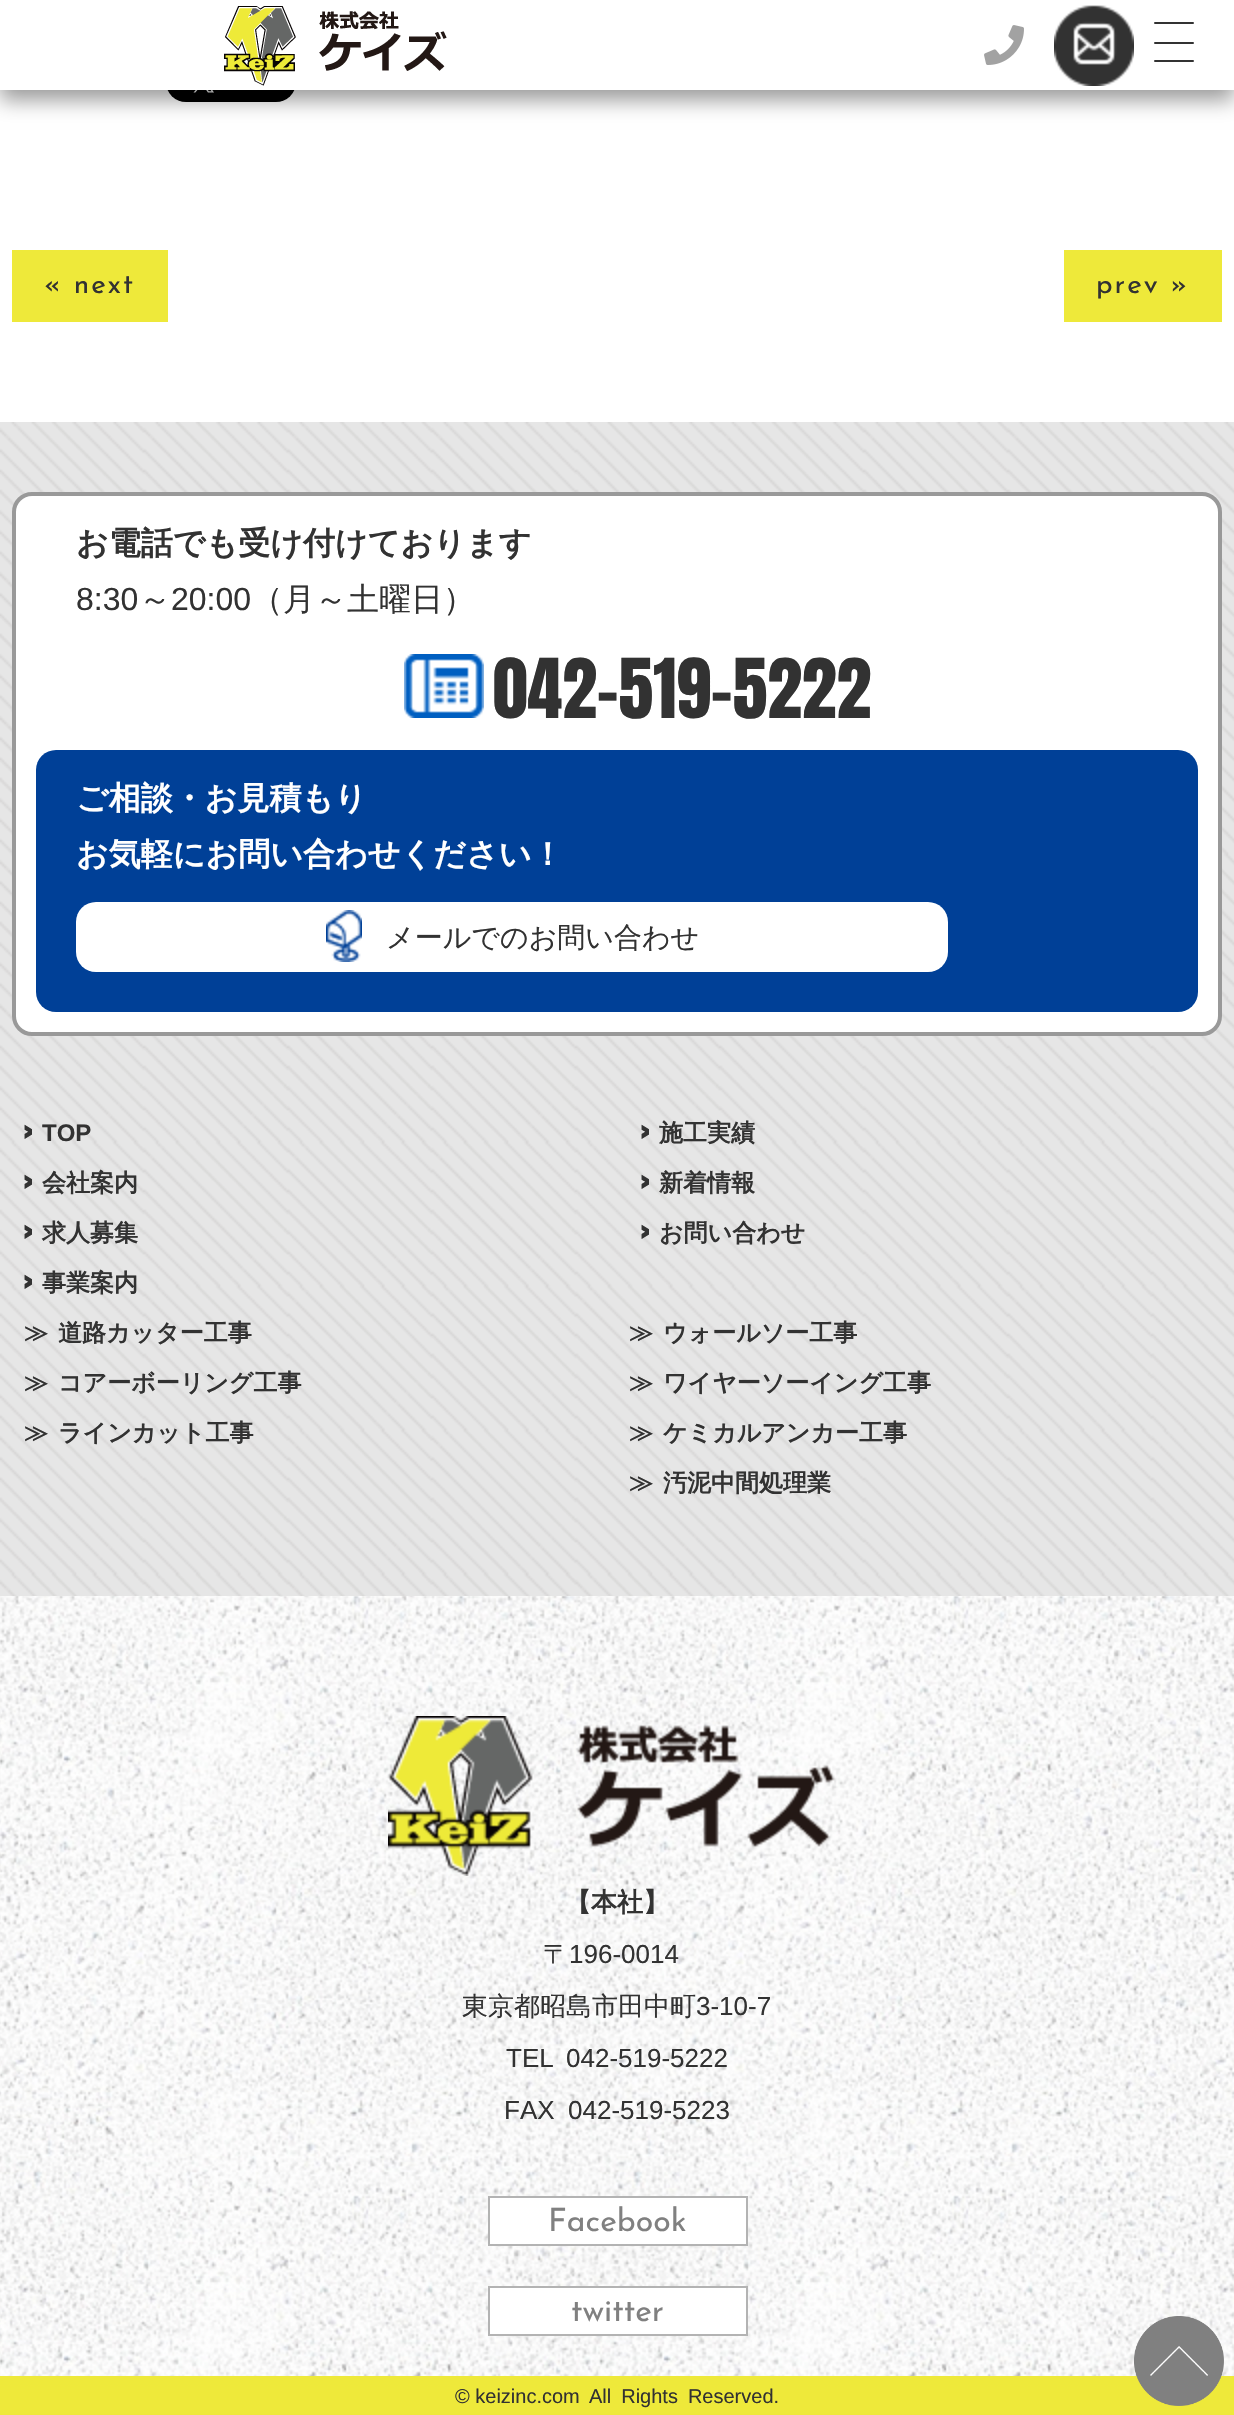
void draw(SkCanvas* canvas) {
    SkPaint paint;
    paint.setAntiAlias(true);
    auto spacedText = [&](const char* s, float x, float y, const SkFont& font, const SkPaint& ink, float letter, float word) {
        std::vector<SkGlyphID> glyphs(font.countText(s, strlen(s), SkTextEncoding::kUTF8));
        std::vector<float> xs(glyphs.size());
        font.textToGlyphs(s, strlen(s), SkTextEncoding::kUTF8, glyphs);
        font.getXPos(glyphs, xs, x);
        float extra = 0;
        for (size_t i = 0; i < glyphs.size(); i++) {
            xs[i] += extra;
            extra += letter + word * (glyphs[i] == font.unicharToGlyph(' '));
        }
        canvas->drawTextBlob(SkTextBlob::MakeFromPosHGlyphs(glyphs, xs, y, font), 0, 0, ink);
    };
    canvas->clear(0xFFFFFFFF);
    canvas->drawImageRect(SkImages::DeferredFromEncodedData(SkData::MakeFromFileName("img4.png")), SkRect::MakeXYWH(167, 90, 128, 12), SkSamplingOptions());
    paint.setColor(0x66000000);
    paint.setMaskFilter(SkMaskFilter::MakeBlur(kNormal_SkBlurStyle, 10));
    canvas->drawRect(SkRect::MakeXYWH(0, 10, 1234, 90), paint);
    paint.setMaskFilter(nullptr);
    paint.setColor(0xFFFFFFFF);
    canvas->drawRect(SkRect::MakeXYWH(0, 0, 1234, 90), paint);
    canvas->drawImageRect(SkImages::DeferredFromEncodedData(SkData::MakeFromFileName("img1.png")), SkRect::MakeXYWH(224, 6, 223, 80), SkSamplingOptions());
    canvas->drawImageRect(SkImages::DeferredFromEncodedData(SkData::MakeFromFileName("img2.png")), SkRect::MakeXYWH(984, 25, 40, 40), SkSamplingOptions());
    canvas->drawImageRect(SkImages::DeferredFromEncodedData(SkData::MakeFromFileName("img3.png")), SkRect::MakeXYWH(1054, 5, 80, 81), SkSamplingOptions());
    paint.setColor(0xFF323232);
    canvas->drawRoundRect(SkRect::MakeXYWH(1154, 22, 40, 2), 1, 1, paint);
    canvas->drawRoundRect(SkRect::MakeXYWH(1154, 42, 40, 2), 1, 1, paint);
    canvas->drawRoundRect(SkRect::MakeXYWH(1154, 60, 40, 2), 1, 1, paint);
    paint.setColor(0xFFEEE93A);
    canvas->drawRect(SkRect::MakeXYWH(12, 250, 156, 72), paint);
    SkFont font1(fontMgr->matchFamilyStyle("Josefin Sans", SkFontStyle(100, SkFontStyle::kNormal_Width, SkFontStyle::kUpright_Slant)), 28);
    font1.setSubpixel(true);
    paint.setColor(0xFF323232);
    spacedText("« next", 44, 293, font1, paint, 2, 0);
    paint.setColor(0xFFEEE93A);
    canvas->drawRect(SkRect::MakeXYWH(1064, 250, 158, 72), paint);
    paint.setColor(0xFF323232);
    spacedText("prev »", 1096, 293, font1, paint, 2, 0);
    paint.setColor(0xFFE6E6E6);
    canvas->drawRect(SkRect::MakeXYWH(0, 422, 1234, 1174), paint);
    canvas->drawImageRect(SkImages::DeferredFromEncodedData(SkData::MakeFromFileName("img5.png")), SkRect::MakeXYWH(0, 422, 1234, 1174), SkSamplingOptions());
    paint.setColor(0xFFFFFFFF);
    canvas->drawRoundRect(SkRect::MakeXYWH(14, 494, 1206, 540), 18, 18, paint);
    paint.setStyle(SkPaint::kStroke_Style);
    paint.setStrokeWidth(4);
    paint.setColor(0xFF999999);
    canvas->drawRoundRect(SkRect::MakeXYWH(14, 494, 1206, 540), 18, 18, paint);
    SkFont font2(fontMgr->matchFamilyStyle("WenQuanYi Zen Hei", SkFontStyle::Bold()), 32);
    font2.setSubpixel(true);
    paint.setStyle(SkPaint::kFill_Style);
    paint.setColor(0xFF323232);
    canvas->drawString("お電話でも受け付けております", 76, 554, font2, paint);
    SkFont font3(fontMgr->matchFamilyStyle("Liberation Sans", SkFontStyle::Normal()), 32);
    font3.setSubpixel(true);
    canvas->drawString("8:30", 76, 610, font3, paint);
    SkFont font4(fontMgr->matchFamilyStyle("WenQuanYi Zen Hei", SkFontStyle(500, SkFontStyle::kNormal_Width, SkFontStyle::kUpright_Slant)), 32);
    font4.setSubpixel(true);
    canvas->drawString("～", 139, 610, font4, paint);
    canvas->drawString("20:00", 171, 610, font3, paint);
    canvas->drawString("（月～土曜日）", 251, 610, font4, paint);
    canvas->drawImageRect(SkImages::DeferredFromEncodedData(SkData::MakeFromFileName("img6.png")), SkRect::MakeXYWH(404, 654, 80, 64), SkSamplingOptions());
    SkFont font5(fontMgr->matchFamilyStyle("Anton", SkFontStyle::Normal()), 70);
    font5.setSubpixel(true);
    canvas->drawString("042-519-5222", 493, 718, font5, paint);
    paint.setColor(0xFF004097);
    canvas->drawRoundRect(SkRect::MakeXYWH(36, 750, 1162, 262), 20, 20, paint);
    paint.setColor(0xFFFFFFFF);
    canvas->drawString("ご相談・お見積もり", 76, 809, font2, paint);
    canvas->drawString("お気軽にお問い合わせください！", 76, 865, font2, paint);
    canvas->drawRoundRect(SkRect::MakeXYWH(76, 902, 872, 70), 20, 20, paint);
    canvas->drawImageRect(SkImages::DeferredFromEncodedData(SkData::MakeFromFileName("img7.png")), SkRect::MakeXYWH(326, 910, 36, 52), SkSamplingOptions());
    SkFont font6(fontMgr->matchFamilyStyle("WenQuanYi Zen Hei", SkFontStyle(500, SkFontStyle::kNormal_Width, SkFontStyle::kUpright_Slant)), 28);
    font6.setSubpixel(true);
    paint.setColor(0xFF323232);
    canvas->drawString("メールでのお問い合わせ", 386, 947, font6, paint);
    SkFont font7(fontMgr->matchFamilyStyle("Anton", SkFontStyle::Bold()), 24);
    font7.setSubpixel(true);
    canvas->drawString(">", 24, 1141, font7, paint);
    SkFont font8(fontMgr->matchFamilyStyle("Liberation Sans", SkFontStyle::Bold()), 24);
    font8.setSubpixel(true);
    canvas->drawString("TOP", 42, 1141, font8, paint);
    canvas->drawString(">", 641, 1141, font7, paint);
    SkFont font9(fontMgr->matchFamilyStyle("WenQuanYi Zen Hei", SkFontStyle::Bold()), 24);
    font9.setSubpixel(true);
    canvas->drawString("施工実績", 659, 1141, font9, paint);
    canvas->drawString(">", 24, 1191, font7, paint);
    canvas->drawString("会社案内", 42, 1191, font9, paint);
    canvas->drawString(">", 641, 1191, font7, paint);
    canvas->drawString("新着情報", 659, 1191, font9, paint);
    canvas->drawString(">", 24, 1241, font7, paint);
    canvas->drawString("求人募集", 42, 1241, font9, paint);
    canvas->drawString(">", 641, 1241, font7, paint);
    canvas->drawString("お問い合わせ", 659, 1241, font9, paint);
    canvas->drawString(">", 24, 1291, font7, paint);
    canvas->drawString("事業案内", 42, 1291, font9, paint);
    canvas->drawString("≫", 24, 1341, font9, paint);
    canvas->drawString("道路カッター工事", 58, 1341, font9, paint);
    canvas->drawString("≫", 24, 1391, font9, paint);
    canvas->drawString("コアーボーリング工事", 58, 1391, font9, paint);
    canvas->drawString("≫", 24, 1441, font9, paint);
    canvas->drawString("ラインカット工事", 58, 1441, font9, paint);
    canvas->drawString("≫", 629, 1341, font9, paint);
    canvas->drawString("ウォールソー工事", 663, 1341, font9, paint);
    canvas->drawString("≫", 629, 1391, font9, paint);
    canvas->drawString("ワイヤーソーイング工事", 663, 1391, font9, paint);
    canvas->drawString("≫", 629, 1441, font9, paint);
    canvas->drawString("ケミカルアンカー工事", 663, 1441, font9, paint);
    canvas->drawString("≫", 629, 1491, font9, paint);
    canvas->drawString("汚泥中間処理業", 663, 1491, font9, paint);
    canvas->drawImageRect(SkImages::DeferredFromEncodedData(SkData::MakeFromFileName("img8.png")), SkRect::MakeXYWH(0, 1596, 1234, 780), SkSamplingOptions());
    canvas->drawImageRect(SkImages::DeferredFromEncodedData(SkData::MakeFromFileName("img9.png")), SkRect::MakeXYWH(388, 1716, 447, 160), SkSamplingOptions());
    SkFont font10(fontMgr->matchFamilyStyle("WenQuanYi Zen Hei", SkFontStyle::Bold()), 26);
    font10.setSubpixel(true);
    canvas->drawString("【本社】", 565, 1911, font10, paint);
    SkFont font11(fontMgr->matchFamilyStyle("WenQuanYi Zen Hei", SkFontStyle(500, SkFontStyle::kNormal_Width, SkFontStyle::kUpright_Slant)), 26);
    font11.setSubpixel(true);
    canvas->drawString("〒", 543, 1963, font11, paint);
    SkFont font12(fontMgr->matchFamilyStyle("Liberation Sans", SkFontStyle::Normal()), 26);
    font12.setSubpixel(true);
    canvas->drawString("196-0014", 569, 1963, font12, paint);
    canvas->drawString("東京都昭島市田中町", 462, 2015, font11, paint);
    canvas->drawString("3-10-7", 696, 2015, font12, paint);
    canvas->drawString("TEL", 506, 2067, font12, paint);
    canvas->drawString("042-519-5222", 566, 2067, font12, paint);
    canvas->drawString("FAX", 504, 2119, font12, paint);
    canvas->drawString("042-519-5223", 568, 2119, font12, paint);
    paint.setColor(0xFFFFFFFF);
    canvas->drawRect(SkRect::MakeXYWH(489, 2197, 258, 48), paint);
    paint.setStyle(SkPaint::kStroke_Style);
    paint.setStrokeWidth(2);
    paint.setColor(0xFFB3B3B3);
    canvas->drawRect(SkRect::MakeXYWH(489, 2197, 258, 48), paint);
    SkFont font13(fontMgr->matchFamilyStyle("Josefin Sans", SkFontStyle(100, SkFontStyle::kNormal_Width, SkFontStyle::kUpright_Slant)), 32);
    font13.setSubpixel(true);
    paint.setStyle(SkPaint::kFill_Style);
    paint.setColor(0xFF808080);
    canvas->drawString("Facebook", 548, 2231, font13, paint);
    paint.setColor(0xFFFFFFFF);
    canvas->drawRect(SkRect::MakeXYWH(489, 2287, 258, 48), paint);
    paint.setStyle(SkPaint::kStroke_Style);
    paint.setColor(0xFFB3B3B3);
    canvas->drawRect(SkRect::MakeXYWH(489, 2287, 258, 48), paint);
    paint.setStyle(SkPaint::kFill_Style);
    paint.setColor(0xFF808080);
    canvas->drawString("twitter", 571, 2321, font13, paint);
    paint.setColor(0xFFEEE93A);
    canvas->drawRect(SkRect::MakeXYWH(0, 2376, 1234, 39), paint);
    SkFont font14(fontMgr->matchFamilyStyle("Liberation Sans", SkFontStyle::Normal()), 20);
    font14.setSubpixel(true);
    paint.setColor(0xFF323232);
    canvas->drawString("© keizinc.com", 455, 2403, font14, paint);
    canvas->drawString("All Rights Reserved.", 589, 2403, font14, paint);
    canvas->drawImageRect(SkImages::DeferredFromEncodedData(SkData::MakeFromFileName("img10.png")), SkRect::MakeXYWH(1134, 2316, 90, 90), SkSamplingOptions());
}
